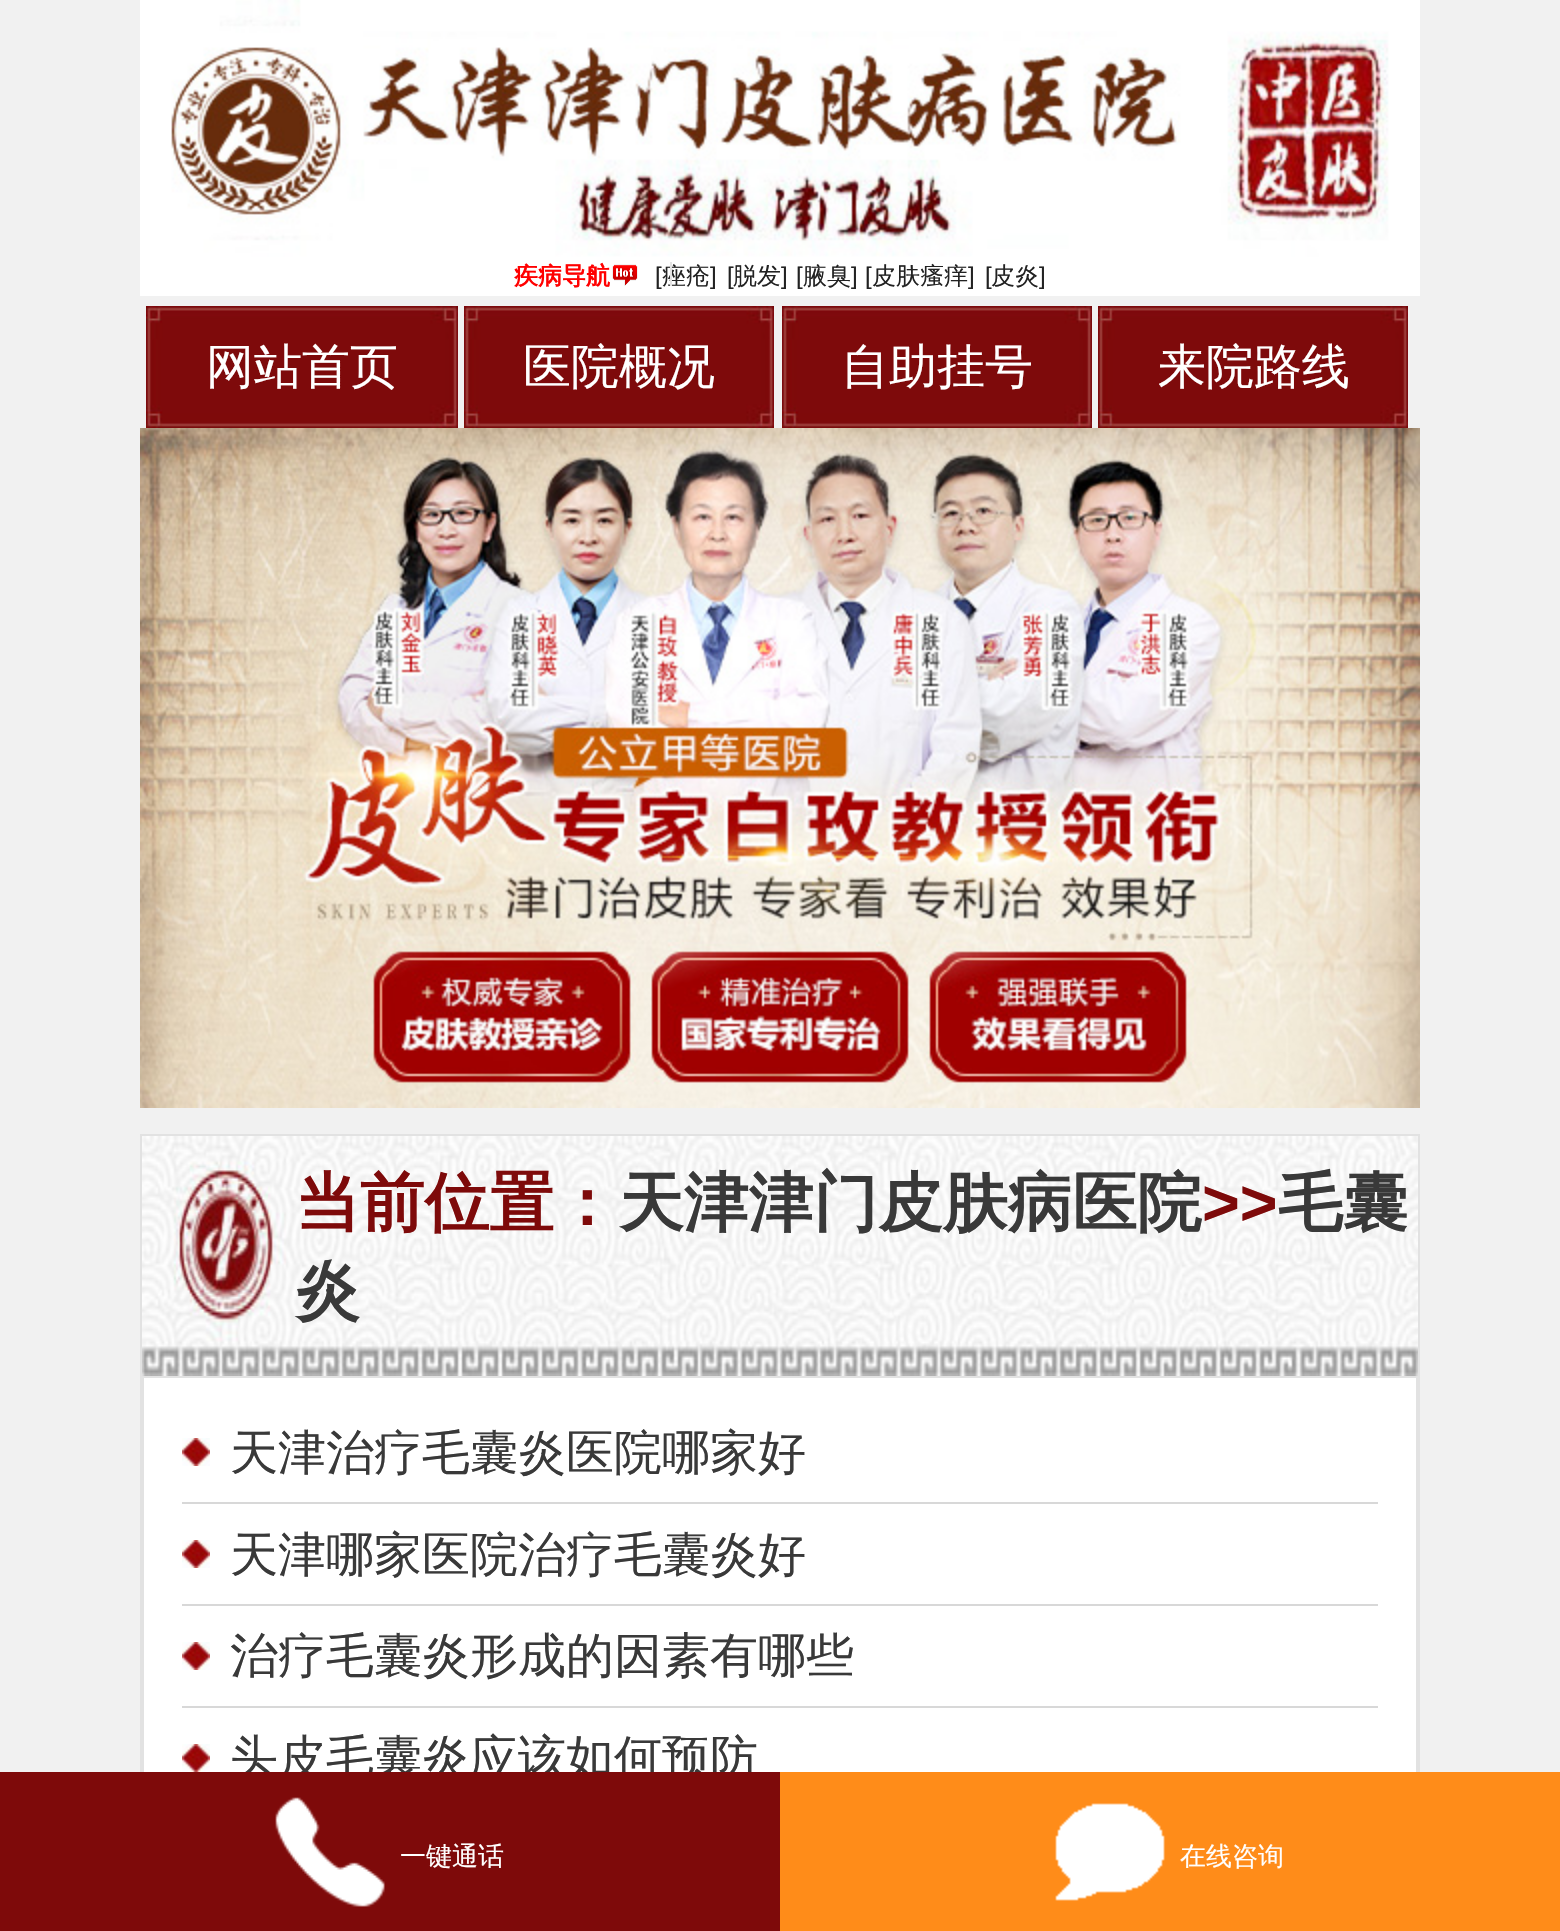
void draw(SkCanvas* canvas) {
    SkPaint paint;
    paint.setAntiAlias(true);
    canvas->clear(0xFFF1F1F1);
    canvas->drawImageRect(SkImages::DeferredFromEncodedData(SkData::MakeFromFileName("img1.png")), SkRect::MakeXYWH(140, 0, 1280, 260), SkSamplingOptions());
    paint.setColor(0xFFFFFFFF);
    canvas->drawRect(SkRect::MakeXYWH(140, 260, 1280, 36), paint);
    SkFont font1(fontMgr->matchFamilyStyle("WenQuanYi Zen Hei", SkFontStyle(500, SkFontStyle::kNormal_Width, SkFontStyle::kUpright_Slant)), 24);
    font1.setSubpixel(true);
    paint.setColor(0xFF222222);
    canvas->drawString("痤疮", 662, 284, font1, paint);
    paint.setColor(0xFFE3E3E3);
    canvas->drawRect(SkRect::MakeXYWH(670, 262, 2, 24), paint);
    SkFont font2(fontMgr->matchFamilyStyle("WenQuanYi Zen Hei", SkFontStyle::Bold()), 24);
    font2.setSubpixel(true);
    paint.setColor(0xFFFF0000);
    canvas->drawString("疾病导航", 514, 284, font2, paint);
    canvas->drawImageRect(SkImages::DeferredFromEncodedData(SkData::MakeFromFileName("img2.png")), SkRect::MakeXYWH(612, 264, 26, 22), SkSamplingOptions());
    SkFont font3(fontMgr->matchFamilyStyle("Liberation Sans", SkFontStyle::Normal()), 24);
    font3.setSubpixel(true);
    paint.setColor(0xFF222222);
    canvas->drawString("[", 655, 284, font3, paint);
    canvas->drawString("]", 710, 284, font3, paint);
    canvas->drawString("[", 727, 284, font3, paint);
    canvas->drawString("脱发", 733, 284, font1, paint);
    canvas->drawString("]", 781, 284, font3, paint);
    canvas->drawString("[", 796, 284, font3, paint);
    canvas->drawString("腋臭", 803, 284, font1, paint);
    canvas->drawString("]", 851, 284, font3, paint);
    canvas->drawString("[", 865, 284, font3, paint);
    canvas->drawString("皮肤瘙痒", 872, 284, font1, paint);
    canvas->drawString("]", 968, 284, font3, paint);
    canvas->drawString("[", 985, 284, font3, paint);
    canvas->drawString("皮炎", 991, 284, font1, paint);
    canvas->drawString("]", 1039, 284, font3, paint);
    canvas->drawImageRect(SkImages::DeferredFromEncodedData(SkData::MakeFromFileName("img3.png")), SkRect::MakeXYWH(146, 306, 312, 122), SkSamplingOptions());
    SkFont font4(fontMgr->matchFamilyStyle("WenQuanYi Zen Hei", SkFontStyle(500, SkFontStyle::kNormal_Width, SkFontStyle::kUpright_Slant)), 48);
    font4.setSubpixel(true);
    paint.setColor(0xFFFFFFFF);
    canvas->drawString("网站首页", 206, 383, font4, paint);
    canvas->drawImageRect(SkImages::DeferredFromEncodedData(SkData::MakeFromFileName("img4.png")), SkRect::MakeXYWH(464, 306, 310, 122), SkSamplingOptions());
    canvas->drawString("医院概况", 523, 383, font4, paint);
    canvas->drawImageRect(SkImages::DeferredFromEncodedData(SkData::MakeFromFileName("img4.png")), SkRect::MakeXYWH(782, 306, 310, 122), SkSamplingOptions());
    canvas->drawString("自助挂号", 841, 383, font4, paint);
    canvas->drawImageRect(SkImages::DeferredFromEncodedData(SkData::MakeFromFileName("img4.png")), SkRect::MakeXYWH(1098, 306, 310, 122), SkSamplingOptions());
    canvas->drawString("来院路线", 1158, 383, font4, paint);
    canvas->drawImageRect(SkImages::DeferredFromEncodedData(SkData::MakeFromFileName("img5.png")), SkRect::MakeXYWH(140, 428, 1280, 680), SkSamplingOptions());
    canvas->drawRect(SkRect::MakeXYWH(144, 1378, 1272, 394), paint);
    paint.setStyle(SkPaint::kStroke_Style);
    paint.setStrokeWidth(2);
    paint.setColor(0xFFE2E2E2);
    canvas->drawRect(SkRect::MakeXYWH(141, 1135, 1278, 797), paint);
    canvas->drawImageRect(SkImages::DeferredFromEncodedData(SkData::MakeFromFileName("img6.png")), SkRect::MakeXYWH(142, 1136, 1276, 240), SkSamplingOptions());
    SkFont font5(fontMgr->matchFamilyStyle("WenQuanYi Zen Hei", SkFontStyle::Bold()), 64.75f);
    font5.setSubpixel(true);
    paint.setStyle(SkPaint::kFill_Style);
    paint.setColor(0xFF7E0A0A);
    canvas->drawString("当前位置：", 295, 1225, font5, paint);
    paint.setColor(0xFF393939);
    canvas->drawString("天津津门皮肤病医院", 619, 1225, font5, paint);
    SkFont font6(fontMgr->matchFamilyStyle("Liberation Sans", SkFontStyle::Bold()), 64.75f);
    font6.setSubpixel(true);
    paint.setColor(0xFF7E0A0A);
    canvas->drawString(">>", 1202, 1225, font6, paint);
    paint.setColor(0xFF393939);
    canvas->drawString("毛囊", 1278, 1225, font5, paint);
    canvas->drawString("炎", 295, 1313, font5, paint);
    paint.setStyle(SkPaint::kStroke_Style);
    paint.setColor(0xFFE2E2E2);
    canvas->drawRect(SkRect::MakeXYWH(143, 1377, 1274, 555), paint);
    canvas->drawImageRect(SkImages::DeferredFromEncodedData(SkData::MakeFromFileName("img7.png")), SkRect::MakeXYWH(182, 1438, 28, 28), SkSamplingOptions());
    paint.setStyle(SkPaint::kFill_Style);
    paint.setColor(0xFFD8D8D8);
    canvas->drawRect(SkRect::MakeXYWH(182, 1502, 1196, 2), paint);
    paint.setColor(0xFF393939);
    canvas->drawString("天津治疗毛囊炎医院哪家好", 230, 1469, font4, paint);
    canvas->drawImageRect(SkImages::DeferredFromEncodedData(SkData::MakeFromFileName("img7.png")), SkRect::MakeXYWH(182, 1540, 28, 28), SkSamplingOptions());
    paint.setColor(0xFFD8D8D8);
    canvas->drawRect(SkRect::MakeXYWH(182, 1604, 1196, 2), paint);
    paint.setColor(0xFF393939);
    canvas->drawString("天津哪家医院治疗毛囊炎好", 230, 1571, font4, paint);
    canvas->drawImageRect(SkImages::DeferredFromEncodedData(SkData::MakeFromFileName("img7.png")), SkRect::MakeXYWH(182, 1642, 28, 28), SkSamplingOptions());
    paint.setColor(0xFFD8D8D8);
    canvas->drawRect(SkRect::MakeXYWH(182, 1706, 1196, 2), paint);
    paint.setColor(0xFF393939);
    canvas->drawString("治疗毛囊炎形成的因素有哪些", 230, 1672, font4, paint);
    canvas->drawImageRect(SkImages::DeferredFromEncodedData(SkData::MakeFromFileName("img7.png")), SkRect::MakeXYWH(182, 1744, 28, 28), SkSamplingOptions());
    canvas->drawString("头皮毛囊炎应该如何预防", 230, 1774, font4, paint);
    paint.setColor(0xFF7E0A0A);
    canvas->drawRect(SkRect::MakeXYWH(0, 1772, 780, 159), paint);
    canvas->drawImageRect(SkImages::DeferredFromEncodedData(SkData::MakeFromFileName("img8.png")), SkRect::MakeXYWH(275, 1797, 110, 110), SkSamplingOptions());
    SkFont font7(fontMgr->matchFamilyStyle("WenQuanYi Zen Hei", SkFontStyle(500, SkFontStyle::kNormal_Width, SkFontStyle::kUpright_Slant)), 26);
    font7.setSubpixel(true);
    paint.setColor(0xFFFFFFFF);
    canvas->drawString("一键通话", 400, 1865, font7, paint);
    paint.setColor(0xFFFF8C19);
    canvas->drawRect(SkRect::MakeXYWH(780, 1772, 780, 159), paint);
    canvas->drawImageRect(SkImages::DeferredFromEncodedData(SkData::MakeFromFileName("img9.png")), SkRect::MakeXYWH(1055, 1803, 110, 98), SkSamplingOptions());
    paint.setColor(0xFFFFFFFF);
    canvas->drawString("在线咨询", 1180, 1865, font7, paint);
}
